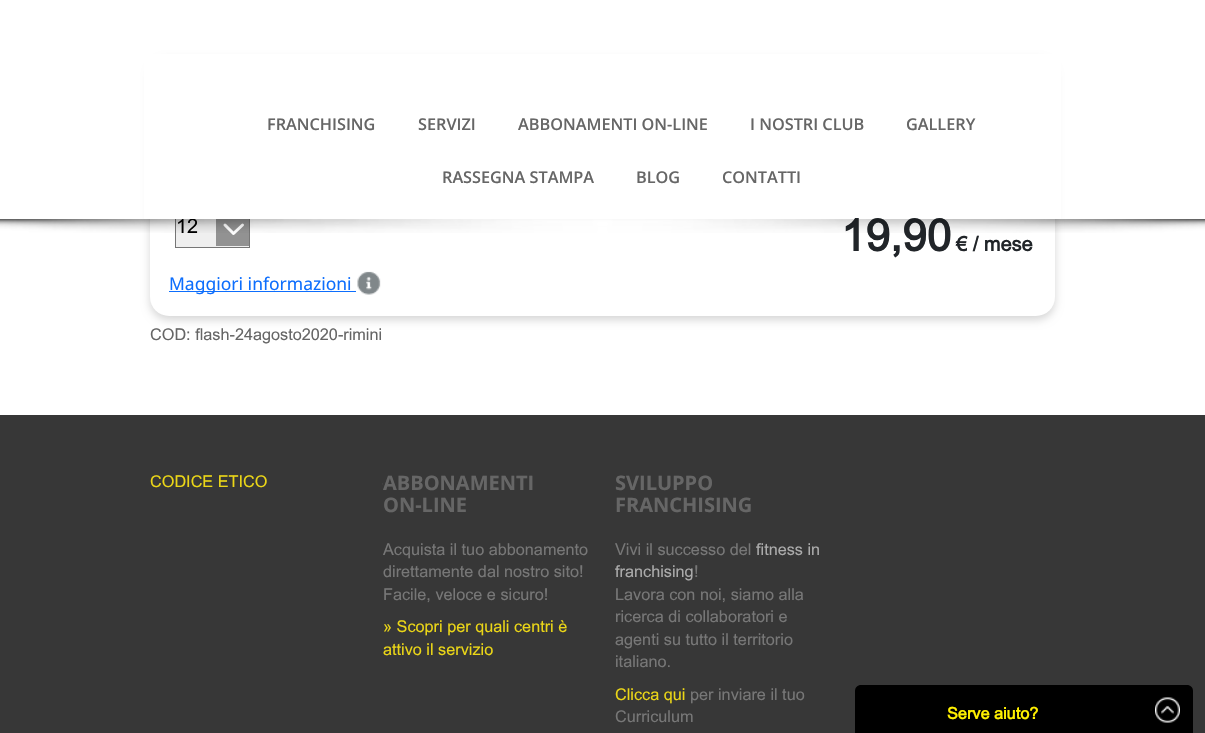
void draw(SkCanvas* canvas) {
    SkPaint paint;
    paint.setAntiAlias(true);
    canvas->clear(0xFFFFFFFF);
    paint.setColor(0x29000000);
    paint.setMaskFilter(SkMaskFilter::MakeBlur(kNormal_SkBlurStyle, 4));
    canvas->drawRoundRect(SkRect::MakeXYWH(150, 60, 905, 260), 19, 19, paint);
    paint.setMaskFilter(nullptr);
    paint.setColor(0xFFFFFFFF);
    canvas->drawRoundRect(SkRect::MakeXYWH(150, 56, 905, 260), 19, 19, paint);
    paint.setColor(0xFFEFEFEF);
    canvas->drawRect(SkRect::MakeXYWH(176, 219, 73, 28), paint);
    paint.setColor(0xFF929292);
    canvas->drawRect(SkRect::MakeXYWH(216, 219, 33, 27), paint);
    paint.setStyle(SkPaint::kStroke_Style);
    paint.setStrokeWidth(3);
    paint.setStrokeCap(SkPaint::kRound_Cap);
    paint.setStrokeJoin(SkPaint::kRound_Join);
    paint.setColor(0xFFFFFFFF);
    canvas->drawPath(SkPathBuilder().moveTo(225, 225).lineTo(233.5f, 233.5f).lineTo(242.5f, 225).detach(), paint);
    paint.setStrokeWidth(1);
    paint.setStrokeCap(SkPaint::kButt_Cap);
    paint.setStrokeJoin(SkPaint::kMiter_Join);
    paint.setColor(0xFF767676);
    canvas->drawRect(SkRect::MakeXYWH(175.5f, 208.5f, 74, 39), paint);
    SkFont font1(fontMgr->matchFamilyStyle("Arial", SkFontStyle::Normal()), 20);
    font1.setSubpixel(true);
    paint.setStyle(SkPaint::kFill_Style);
    paint.setColor(0xFF000000);
    canvas->drawString("12", 176, 233, font1, paint);
    paint.setColor(0xFFFFFFFF);
    canvas->drawRect(SkRect::MakeXYWH(144, 54, 917, 165), paint);
    SkFont font2(fontMgr->matchFamilyStyle("Open Sans", SkFontStyle(600, SkFontStyle::kNormal_Width, SkFontStyle::kUpright_Slant)), 16.25f);
    font2.setSubpixel(true);
    paint.setColor(0xFF666666);
    canvas->drawString("FRANCHISING", 267, 130, font2, paint);
    canvas->drawString("SERVIZI", 418, 130, font2, paint);
    canvas->drawString("ABBONAMENTI ON-LINE", 518, 130, font2, paint);
    canvas->drawString("I NOSTRI CLUB", 750, 130, font2, paint);
    canvas->drawString("GALLERY", 906, 130, font2, paint);
    canvas->drawString("RASSEGNA STAMPA", 442, 183, font2, paint);
    canvas->drawString("BLOG", 636, 183, font2, paint);
    canvas->drawString("CONTATTI", 722, 183, font2, paint);
    SkFont font3(fontMgr->matchFamilyStyle("Arial", SkFontStyle::Bold()), 44);
    font3.setSubpixel(true);
    paint.setColor(0xFF212529);
    canvas->drawString("19,90", 841, 251, font3, paint);
    canvas->drawImageRect(SkImages::DeferredFromEncodedData(SkData::MakeFromFileName("img1.png")), SkRect::MakeXYWH(0, 219, 1205, 14), SkSamplingOptions());
    SkFont font4(fontMgr->matchFamilyStyle("Arial", SkFontStyle::Bold()), 20);
    font4.setSubpixel(true);
    canvas->drawString("€ / mese", 956, 251, font4, paint);
    paint.setColor(0xFF0D6EFD);
    canvas->drawRect(SkRect::MakeXYWH(169, 291, 187, 1), paint);
    SkFont font5(fontMgr->matchFamilyStyle("Noto Sans", SkFontStyle::Normal()), 17.5f);
    font5.setSubpixel(true);
    canvas->drawString("Maggiori informazioni", 169, 290, font5, paint);
    canvas->drawImageRect(SkImages::DeferredFromEncodedData(SkData::MakeFromFileName("img2.png")), SkRect::MakeXYWH(357, 271, 24, 24), SkSamplingOptions());
    SkFont font6(fontMgr->matchFamilyStyle("Arial", SkFontStyle::Normal()), 16.25f);
    font6.setSubpixel(true);
    paint.setColor(0xFF666666);
    canvas->drawString("COD: flash-24agosto2020-rimini", 150, 340, font6, paint);
    paint.setColor(0xFF373737);
    canvas->drawRect(SkRect::MakeXYWH(0, 415, 1205, 318), paint);
    paint.setColor(0xFFEBD617);
    canvas->drawString("CODICE ETICO", 150, 487, font6, paint);
    canvas->drawImageRect(SkImages::DeferredFromEncodedData(SkData::MakeFromFileName("img3.png")), SkRect::MakeXYWH(382, 483, 1, 2), SkSamplingOptions());
    SkFont font7(fontMgr->matchFamilyStyle("Open Sans", SkFontStyle::Bold()), 20);
    font7.setSubpixel(true);
    paint.setColor(0xFF666666);
    canvas->drawString("ABBONAMENTI", 383, 490, font7, paint);
    canvas->drawString("ON-LINE", 383, 512, font7, paint);
    paint.setColor(0xFF777777);
    canvas->drawString("Acquista il tuo abbonamento", 383, 555, font6, paint);
    canvas->drawString("direttamente dal nostro sito!", 383, 577, font6, paint);
    canvas->drawString("Facile, veloce e sicuro!", 383, 600, font6, paint);
    paint.setColor(0xFFEBD617);
    canvas->drawString("» Scopri per quali centri è", 383, 632, font6, paint);
    canvas->drawString("attivo il servizio", 383, 655, font6, paint);
    paint.setColor(0xFF666666);
    canvas->drawString("SVILUPPO", 615, 490, font7, paint);
    canvas->drawString("FRANCHISING", 615, 512, font7, paint);
    paint.setColor(0xFF777777);
    canvas->drawString("Vivi il successo del", 615, 555, font6, paint);
    paint.setColor(0xFFABABAB);
    canvas->drawString("fitness in", 756, 555, font6, paint);
    canvas->drawString("franchising", 615, 577, font6, paint);
    paint.setColor(0xFF777777);
    canvas->drawString("!", 694, 577, font6, paint);
    canvas->drawString("Lavora con noi, siamo alla", 615, 600, font6, paint);
    canvas->drawString("ricerca di collaboratori e", 615, 622, font6, paint);
    canvas->drawString("agenti su tutto il territorio", 615, 645, font6, paint);
    canvas->drawString("italiano.", 615, 667, font6, paint);
    paint.setColor(0xFFEBD617);
    canvas->drawString("Clicca qui", 615, 700, font6, paint);
    paint.setColor(0xFF777777);
    canvas->drawString("per inviare il tuo", 690, 700, font6, paint);
    canvas->drawString("Curriculum", 615, 722, font6, paint);
    paint.setColor(0xFF000000);
    canvas->drawPath(SkPathBuilder().moveTo(861, 685).lineTo(1187, 685).cubicTo(1190.5f, 685, 1193, 687.5f, 1193, 691).lineTo(1193, 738).lineTo(855, 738).lineTo(855, 691).cubicTo(855, 687.5f, 857.5f, 685, 861, 685).close().detach(), paint);
    SkFont font8(fontMgr->matchFamilyStyle("Arial", SkFontStyle::Bold()), 16.25f);
    font8.setSubpixel(true);
    paint.setColor(0xFFFFF000);
    canvas->drawString("Serve aiuto?", 947, 719, font8, paint);
    canvas->drawImageRect(SkImages::DeferredFromEncodedData(SkData::MakeFromFileName("img4.png")), SkRect::MakeXYWH(1155, 697, 25, 26), SkSamplingOptions());
}
